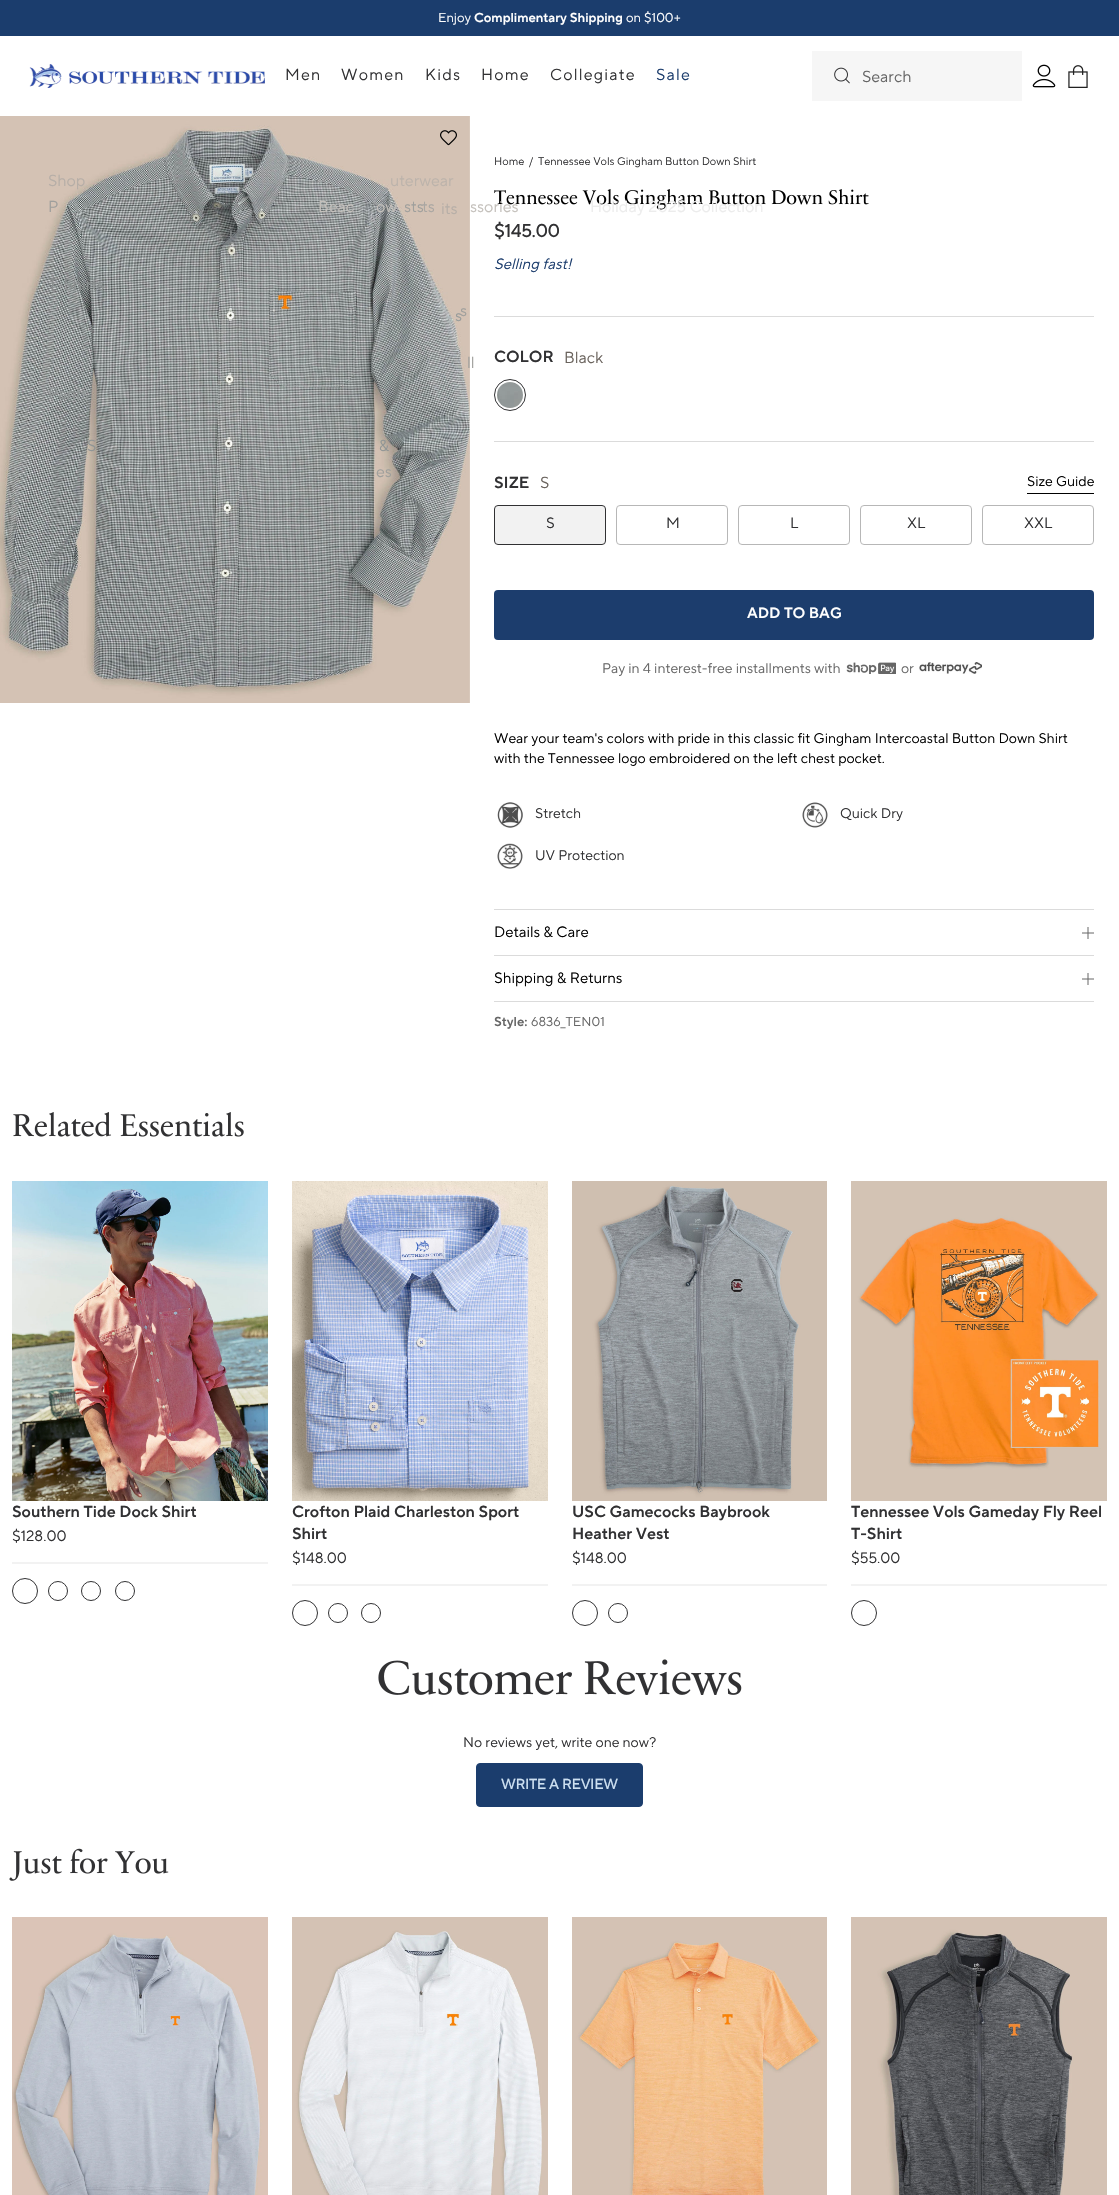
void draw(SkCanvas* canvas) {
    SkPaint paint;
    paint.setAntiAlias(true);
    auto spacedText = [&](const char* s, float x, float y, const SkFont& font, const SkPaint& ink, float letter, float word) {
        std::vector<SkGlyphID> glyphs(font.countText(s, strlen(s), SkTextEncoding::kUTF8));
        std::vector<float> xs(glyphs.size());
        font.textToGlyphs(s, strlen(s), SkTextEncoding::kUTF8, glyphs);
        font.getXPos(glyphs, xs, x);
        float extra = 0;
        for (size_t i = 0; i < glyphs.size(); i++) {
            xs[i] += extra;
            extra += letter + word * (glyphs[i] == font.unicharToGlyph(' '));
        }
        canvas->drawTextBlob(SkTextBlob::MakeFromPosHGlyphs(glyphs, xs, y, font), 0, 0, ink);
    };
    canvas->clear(0xFFFFFFFF);
    paint.setColor(0xFF1B3D6D);
    canvas->drawRect(SkRect::MakeXYWH(0, 0, 1119, 36), paint);
    SkFont font1(fontMgr->matchFamilyStyle("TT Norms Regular", SkFontStyle::Normal()), 13);
    font1.setSubpixel(true);
    paint.setColor(0xFFFFFFFF);
    canvas->drawString("Enjoy", 438, 22, font1, paint);
    SkFont font2(fontMgr->matchFamilyStyle("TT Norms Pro", SkFontStyle(600, SkFontStyle::kNormal_Width, SkFontStyle::kUpright_Slant)), 13);
    font2.setSubpixel(true);
    canvas->drawString("Complimentary Shipping", 474, 22, font2, paint);
    canvas->drawString("on $100+", 626, 22, font1, paint);
    canvas->drawImageRect(SkImages::DeferredFromEncodedData(SkData::MakeFromFileName("img1.png")), SkRect::MakeXYWH(29, 64, 236, 24), SkSamplingOptions());
    SkFont font3(fontMgr->matchFamilyStyle("TT Norms Regular", SkFontStyle::Normal()), 16);
    font3.setSubpixel(true);
    paint.setColor(0xFF313133);
    spacedText("Men", 285, 80, font3, paint, 1.25f, 0);
    canvas->drawImageRect(SkImages::DeferredFromEncodedData(SkData::MakeFromFileName("img5.png")), SkRect::MakeXYWH(0, 116, 470, 587), SkSamplingOptions());
    paint.setColor(0xFFB6AEA7);
    canvas->drawString("Shop", 48, 186, font3, paint);
    paint.setColor(0xFF9F9F9C);
    canvas->drawString("P", 48, 212, font3, paint);
    paint.setColor(0xFF8B8F8F);
    canvas->drawString("i", 229, 238, font3, paint);
    canvas->drawString("T-Shirts", 48, 290, font3, paint);
    paint.setColor(0xFF909595);
    canvas->drawString("Pants", 48, 399, font3, paint);
    paint.setColor(0xFFBCB3AB);
    canvas->drawString("uterwear", 390, 186, font3, paint);
    paint.setColor(0xFF9F9F9C);
    canvas->drawString("sts", 404, 212, font3, paint);
    paint.setColor(0xFF979B9A);
    canvas->drawString("s", 455, 321, font3, paint);
    paint.setColor(0xFF909595);
    canvas->drawString("&", 379, 451, font3, paint);
    paint.setColor(0xFF9F9F9C);
    canvas->drawString("es", 376, 477, font3, paint);
    canvas->drawImageRect(SkImages::DeferredFromEncodedData(SkData::MakeFromFileName("img7.png")), SkRect::MakeXYWH(494, 189, 375, 21), SkSamplingOptions());
    paint.setColor(0xFFECECEC);
    canvas->drawString("Holiday 2025 Collection", 590, 212, font3, paint);
    paint.setColor(0xFF313133);
    spacedText("Kids", 425, 80, font3, paint, 1.25f, 0);
    paint.setColor(0xFFA9A6A2);
    canvas->drawString("ts", 422, 212, font3, paint);
    paint.setColor(0xFF909595);
    canvas->drawString("S", 87, 451, font3, paint);
    paint.setColor(0xFF313133);
    spacedText("Home", 481, 80, font3, paint, 1.25f, 0);
    paint.setColor(0xFFC4C0BB);
    canvas->drawString("Beac", 318, 212, font3, paint);
    canvas->drawString("ow", 376, 212, font3, paint);
    canvas->drawString("ssories", 470, 212, font3, paint);
    paint.setColor(0xFF9F9F9C);
    canvas->drawString("s", 460, 316, font3, paint);
    canvas->drawString("ll", 467, 368, font3, paint);
    paint.setColor(0xFF313133);
    spacedText("Women", 341, 80, font3, paint, 1.25f, 0);
    paint.setColor(0xFF1C3D6D);
    spacedText("Sale", 656, 80, font3, paint, 1.25f, 0);
    paint.setColor(0xFFB6AEA7);
    canvas->drawString("its", 441, 214, font3, paint);
    paint.setColor(0xFF313133);
    spacedText("Collegiate", 550, 80, font3, paint, 1.25f, 0);
    paint.setColor(0xFFF6F6F6);
    canvas->drawRect(SkRect::MakeXYWH(812, 51, 210, 50), paint);
    canvas->drawImageRect(SkImages::DeferredFromEncodedData(SkData::MakeFromFileName("img2.png")), SkRect::MakeXYWH(834, 67, 16, 17), SkSamplingOptions());
    paint.setColor(0xFF666666);
    canvas->drawString("Search", 862, 82, font3, paint);
    canvas->drawImageRect(SkImages::DeferredFromEncodedData(SkData::MakeFromFileName("img3.png")), SkRect::MakeXYWH(1032, 64, 24, 24), SkSamplingOptions());
    canvas->drawImageRect(SkImages::DeferredFromEncodedData(SkData::MakeFromFileName("img4.png")), SkRect::MakeXYWH(1068, 65, 20, 23), SkSamplingOptions());
    canvas->drawImageRect(SkImages::DeferredFromEncodedData(SkData::MakeFromFileName("img6.png")), SkRect::MakeXYWH(440, 130, 17, 16), SkSamplingOptions());
    SkFont font4(fontMgr->matchFamilyStyle("TT Norms Regular", SkFontStyle::Normal()), 11);
    font4.setSubpixel(true);
    paint.setColor(0xFF313133);
    canvas->drawString("Home", 494, 165, font4, paint);
    canvas->drawString("/", 529, 165, font4, paint);
    canvas->drawString("Tennessee Vols Gingham Button Down Shirt", 538, 165, font4, paint);
    SkFont font5(fontMgr->matchFamilyStyle("TT Norms Regular", SkFontStyle::Bold()), 18);
    font5.setSubpixel(true);
    canvas->drawString("$145.00", 494, 237, font5, paint);
    SkFont font6(fontMgr->matchFamilyStyle("TT Norms Regular", SkFontStyle::Italic()), 15);
    font6.setSubpixel(true);
    paint.setColor(0xFF1C3D6D);
    canvas->drawString("Selling fast!", 494, 269, font6, paint);
    paint.setColor(0xFFDBDBDB);
    canvas->drawRect(SkRect::MakeXYWH(494, 316, 600, 1), paint);
    SkFont font7(fontMgr->matchFamilyStyle("TT Norms Pro", SkFontStyle(600, SkFontStyle::kNormal_Width, SkFontStyle::kUpright_Slant)), 16);
    font7.setSubpixel(true);
    paint.setColor(0xFF313133);
    canvas->drawString("COLOR", 494, 362, font7, paint);
    paint.setColor(0xFF6A635D);
    canvas->drawString("Black", 564, 363, font3, paint);
    paint.setStyle(SkPaint::kStroke_Style);
    paint.setStrokeWidth(1);
    paint.setColor(0xFF313133);
    canvas->drawCircle(510, 395, 15.5f, paint);
    canvas->drawImageRect(SkImages::DeferredFromEncodedData(SkData::MakeFromFileName("img8.png")), SkRect::MakeXYWH(497, 382, 26, 26), SkSamplingOptions());
    paint.setStyle(SkPaint::kFill_Style);
    paint.setColor(0xFFDBDBDB);
    canvas->drawRect(SkRect::MakeXYWH(494, 441, 600, 1), paint);
    paint.setColor(0xFF313133);
    canvas->drawString("SIZE", 494, 488, font7, paint);
    paint.setColor(0xFF6A635D);
    canvas->drawString("S", 540, 488, font3, paint);
    paint.setColor(0xFF000000);
    canvas->drawRect(SkRect::MakeXYWH(1027, 493, 67, 1), paint);
    SkFont font8(fontMgr->matchFamilyStyle("TT Norms Regular", SkFontStyle::Normal()), 14);
    font8.setSubpixel(true);
    canvas->drawString("Size Guide", 1027, 486, font8, paint);
    paint.setColor(0xFFF2F2F2);
    canvas->drawRoundRect(SkRect::MakeXYWH(494.5f, 505.5f, 111, 39), 3.5f, 3.5f, paint);
    paint.setStyle(SkPaint::kStroke_Style);
    paint.setColor(0xFF313133);
    canvas->drawRoundRect(SkRect::MakeXYWH(494.5f, 505.5f, 111, 39), 3.5f, 3.5f, paint);
    SkFont font9(fontMgr->matchFamilyStyle("TT Norms Regular", SkFontStyle::Normal()), 15);
    font9.setSubpixel(true);
    paint.setStyle(SkPaint::kFill_Style);
    canvas->drawString("S", 546, 528, font9, paint);
    paint.setStyle(SkPaint::kStroke_Style);
    paint.setColor(0xFFB7B7B7);
    canvas->drawRoundRect(SkRect::MakeXYWH(616.5f, 505.5f, 111, 39), 3.5f, 3.5f, paint);
    paint.setStyle(SkPaint::kFill_Style);
    paint.setColor(0xFF313133);
    canvas->drawString("M", 666, 528, font9, paint);
    paint.setStyle(SkPaint::kStroke_Style);
    paint.setColor(0xFFB7B7B7);
    canvas->drawRoundRect(SkRect::MakeXYWH(738.5f, 505.5f, 111, 39), 3.5f, 3.5f, paint);
    paint.setStyle(SkPaint::kFill_Style);
    paint.setColor(0xFF313133);
    canvas->drawString("L", 790, 528, font9, paint);
    paint.setStyle(SkPaint::kStroke_Style);
    paint.setColor(0xFFB7B7B7);
    canvas->drawRoundRect(SkRect::MakeXYWH(860.5f, 505.5f, 111, 39), 3.5f, 3.5f, paint);
    paint.setStyle(SkPaint::kFill_Style);
    paint.setColor(0xFF313133);
    canvas->drawString("XL", 907, 528, font9, paint);
    paint.setStyle(SkPaint::kStroke_Style);
    paint.setColor(0xFFB7B7B7);
    canvas->drawRoundRect(SkRect::MakeXYWH(982.5f, 505.5f, 111, 39), 3.5f, 3.5f, paint);
    paint.setStyle(SkPaint::kFill_Style);
    paint.setColor(0xFF313133);
    canvas->drawString("XXL", 1024, 528, font9, paint);
    paint.setColor(0xFF1C3D6D);
    canvas->drawRoundRect(SkRect::MakeXYWH(494, 590, 600, 50), 4, 4, paint);
    SkFont font10(fontMgr->matchFamilyStyle("TT Norms Pro", SkFontStyle(600, SkFontStyle::kNormal_Width, SkFontStyle::kUpright_Slant)), 15);
    font10.setSubpixel(true);
    paint.setColor(0xFFFFFFFF);
    canvas->drawString("ADD TO BAG", 747, 618, font10, paint);
    paint.setColor(0xFF666666);
    canvas->drawString("Pay in 4 interest-free installments with", 602, 673, font8, paint);
    canvas->drawImageRect(SkImages::DeferredFromEncodedData(SkData::MakeFromFileName("img9.png")), SkRect::MakeXYWH(846, 662, 50, 12), SkSamplingOptions());
    canvas->drawString("or", 901, 673, font8, paint);
    canvas->drawImageRect(SkImages::DeferredFromEncodedData(SkData::MakeFromFileName("img10.png")), SkRect::MakeXYWH(919, 662, 63, 12), SkSamplingOptions());
    paint.setColor(0xFF000000);
    canvas->drawString("Wear your team's colors with pride in this classic fit Gingham Intercoastal Button Down Shirt", 494, 743, font8, paint);
    canvas->drawString("with the Tennessee logo embroidered on the left chest pocket.", 494, 763, font8, paint);
    canvas->drawImageRect(SkImages::DeferredFromEncodedData(SkData::MakeFromFileName("img11.png")), SkRect::MakeXYWH(497, 802, 26, 26), SkSamplingOptions());
    paint.setColor(0xFF313133);
    canvas->drawString("Stretch", 535, 818, font8, paint);
    canvas->drawImageRect(SkImages::DeferredFromEncodedData(SkData::MakeFromFileName("img12.png")), SkRect::MakeXYWH(802, 802, 26, 26), SkSamplingOptions());
    canvas->drawString("Quick Dry", 840, 818, font8, paint);
    canvas->drawImageRect(SkImages::DeferredFromEncodedData(SkData::MakeFromFileName("img13.png")), SkRect::MakeXYWH(497, 843, 26, 26), SkSamplingOptions());
    canvas->drawString("UV Protection", 535, 860, font8, paint);
    paint.setColor(0xFFDBDBDB);
    canvas->drawRect(SkRect::MakeXYWH(494, 909, 600, 1), paint);
    canvas->drawRect(SkRect::MakeXYWH(494, 955, 600, 1), paint);
    paint.setColor(0xFF000000);
    canvas->drawString("Details & Care", 494, 937, font9, paint);
    paint.setStyle(SkPaint::kStroke_Style);
    paint.setColor(0xFF666666);
    canvas->drawPath(SkPathBuilder().moveTo(1088, 927).lineTo(1088, 939).moveTo(1082, 933).lineTo(1094, 933).moveTo(1088, 973).lineTo(1088, 985).moveTo(1082, 979).lineTo(1094, 979).detach(), paint);
    paint.setStyle(SkPaint::kFill_Style);
    paint.setColor(0xFFDBDBDB);
    canvas->drawRect(SkRect::MakeXYWH(494, 1001, 600, 1), paint);
    paint.setColor(0xFF000000);
    canvas->drawString("Shipping & Returns", 494, 983, font9, paint);
    paint.setColor(0xFF666666);
    canvas->drawString("Style:", 494, 1026, font2, paint);
    canvas->drawString("6836_TEN01", 531, 1026, font1, paint);
    canvas->drawImageRect(SkImages::DeferredFromEncodedData(SkData::MakeFromFileName("img14.png")), SkRect::MakeXYWH(13, 1112, 231, 25), SkSamplingOptions());
    canvas->drawImageRect(SkImages::DeferredFromEncodedData(SkData::MakeFromFileName("img15.png")), SkRect::MakeXYWH(12, 1181, 256, 320), SkSamplingOptions());
    paint.setColor(0xFF313133);
    canvas->drawString("Southern Tide Dock Shirt", 12, 1517, font7, paint);
    paint.setColor(0xFFF2F2F2);
    canvas->drawRect(SkRect::MakeXYWH(12, 1562, 256, 2), paint);
    paint.setColor(0xFF313133);
    canvas->drawString("$128.00", 12, 1541, font9, paint);
    paint.setStyle(SkPaint::kStroke_Style);
    canvas->drawCircle(25, 1591, 12.5f, paint);
    canvas->drawCircle(58, 1591, 9.5f, paint);
    canvas->drawCircle(91, 1591, 9.5f, paint);
    canvas->drawCircle(125, 1591, 9.5f, paint);
    canvas->drawImageRect(SkImages::DeferredFromEncodedData(SkData::MakeFromFileName("img16.png")), SkRect::MakeXYWH(292, 1181, 256, 320), SkSamplingOptions());
    paint.setStyle(SkPaint::kFill_Style);
    canvas->drawString("Crofton Plaid Charleston Sport", 292, 1517, font7, paint);
    canvas->drawString("Shirt", 292, 1539, font7, paint);
    paint.setColor(0xFFF2F2F2);
    canvas->drawRect(SkRect::MakeXYWH(292, 1584, 256, 2), paint);
    paint.setColor(0xFF313133);
    canvas->drawString("$148.00", 292, 1563, font9, paint);
    paint.setStyle(SkPaint::kStroke_Style);
    canvas->drawCircle(305, 1613, 12.5f, paint);
    canvas->drawCircle(338, 1613, 9.5f, paint);
    canvas->drawCircle(371, 1613, 9.5f, paint);
    canvas->drawImageRect(SkImages::DeferredFromEncodedData(SkData::MakeFromFileName("img17.png")), SkRect::MakeXYWH(572, 1181, 255, 320), SkSamplingOptions());
    paint.setStyle(SkPaint::kFill_Style);
    canvas->drawString("USC Gamecocks Baybrook", 572, 1517, font7, paint);
    canvas->drawString("Heather Vest", 572, 1539, font7, paint);
    paint.setColor(0xFFF2F2F2);
    canvas->drawRect(SkRect::MakeXYWH(572, 1584, 255, 2), paint);
    paint.setColor(0xFF313133);
    canvas->drawString("$148.00", 572, 1563, font9, paint);
    paint.setStyle(SkPaint::kStroke_Style);
    canvas->drawCircle(585, 1613, 12.5f, paint);
    canvas->drawCircle(618, 1613, 9.5f, paint);
    canvas->drawImageRect(SkImages::DeferredFromEncodedData(SkData::MakeFromFileName("img18.png")), SkRect::MakeXYWH(851, 1181, 256, 320), SkSamplingOptions());
    paint.setStyle(SkPaint::kFill_Style);
    canvas->drawString("Tennessee Vols Gameday Fly Reel", 851, 1517, font7, paint);
    canvas->drawString("T-Shirt", 851, 1539, font7, paint);
    paint.setColor(0xFFF2F2F2);
    canvas->drawRect(SkRect::MakeXYWH(851, 1584, 256, 2), paint);
    paint.setColor(0xFF313133);
    canvas->drawString("$55.00", 851, 1563, font9, paint);
    paint.setStyle(SkPaint::kStroke_Style);
    canvas->drawCircle(864, 1613, 12.5f, paint);
    canvas->drawImageRect(SkImages::DeferredFromEncodedData(SkData::MakeFromFileName("img19.png")), SkRect::MakeXYWH(378, 1659, 364, 36), SkSamplingOptions());
    paint.setStyle(SkPaint::kFill_Style);
    canvas->drawString("No reviews yet, write one now?", 463, 1747, font8, paint);
    paint.setColor(0xFF1B3D6D);
    canvas->drawRoundRect(SkRect::MakeXYWH(476.5f, 1763.5f, 166, 43), 3.5f, 3.5f, paint);
    paint.setStyle(SkPaint::kStroke_Style);
    canvas->drawRoundRect(SkRect::MakeXYWH(476.5f, 1763.5f, 166, 43), 3.5f, 3.5f, paint);
    SkFont font11(fontMgr->matchFamilyStyle("TT Norms Regular", SkFontStyle::Bold()), 14);
    font11.setSubpixel(true);
    paint.setStyle(SkPaint::kFill_Style);
    paint.setColor(0xFFCDE0F1);
    canvas->drawString("WRITE A REVIEW", 501, 1789, font11, paint);
    canvas->drawImageRect(SkImages::DeferredFromEncodedData(SkData::MakeFromFileName("img20.png")), SkRect::MakeXYWH(9, 1848, 160, 33), SkSamplingOptions());
    canvas->drawImageRect(SkImages::DeferredFromEncodedData(SkData::MakeFromFileName("img21.png")), SkRect::MakeXYWH(12, 1917, 256, 278), SkSamplingOptions());
    canvas->drawImageRect(SkImages::DeferredFromEncodedData(SkData::MakeFromFileName("img22.png")), SkRect::MakeXYWH(292, 1917, 256, 278), SkSamplingOptions());
    canvas->drawImageRect(SkImages::DeferredFromEncodedData(SkData::MakeFromFileName("img23.png")), SkRect::MakeXYWH(572, 1917, 255, 278), SkSamplingOptions());
    canvas->drawImageRect(SkImages::DeferredFromEncodedData(SkData::MakeFromFileName("img24.png")), SkRect::MakeXYWH(851, 1917, 256, 278), SkSamplingOptions());
}
